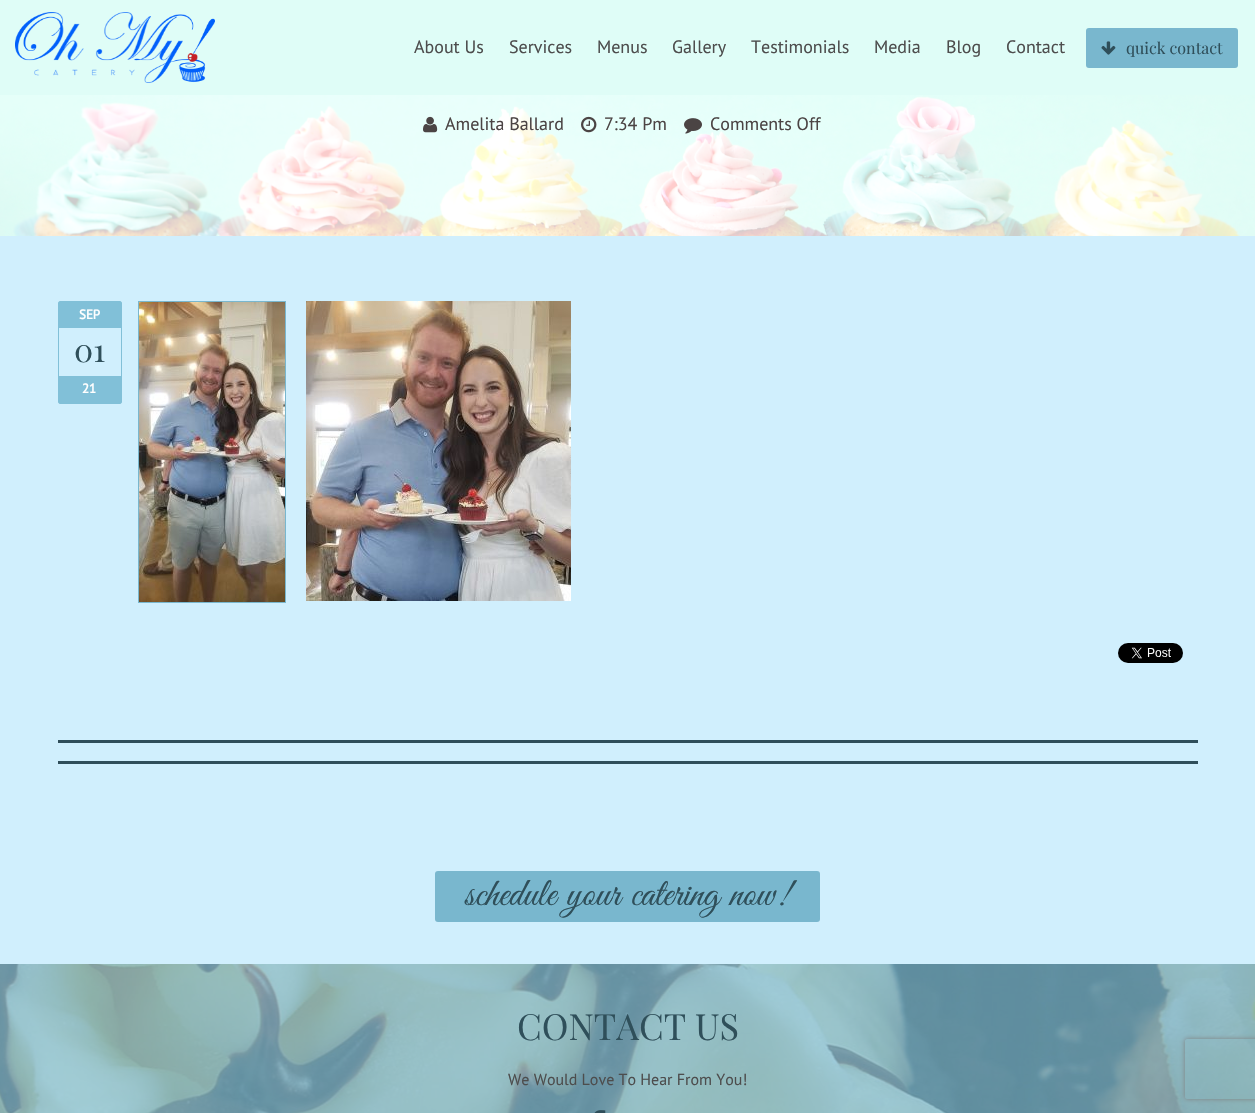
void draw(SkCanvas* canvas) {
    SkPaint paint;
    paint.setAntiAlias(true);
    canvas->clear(0xFFD0EFFD);
    paint.setColor(0xFFDFFDF7);
    canvas->drawRect(SkRect::MakeXYWH(0, 0, 1255, 95), paint);
    canvas->drawImageRect(SkImages::DeferredFromEncodedData(SkData::MakeFromFileName("img1.png")), SkRect::MakeXYWH(15, 12, 200, 71), SkSamplingOptions());
    SkFont font1(fontMgr->matchFamilyStyle("PT Sans", SkFontStyle::Normal()), 18);
    font1.setSubpixel(true);
    paint.setColor(0xFF4D4D4D);
    canvas->drawString("About Us", 414, 53, font1, paint);
    canvas->drawString("Services", 509, 53, font1, paint);
    canvas->drawString("Menus", 597, 53, font1, paint);
    canvas->drawString("Gallery", 672, 53, font1, paint);
    canvas->drawString("Testimonials", 751, 53, font1, paint);
    canvas->drawString("Media", 874, 53, font1, paint);
    canvas->drawString("Blog", 946, 53, font1, paint);
    canvas->drawString("Contact", 1006, 53, font1, paint);
    paint.setColor(0xFF79B7CE);
    canvas->drawRoundRect(SkRect::MakeXYWH(1086, 28, 152, 40), 3, 3, paint);
    canvas->drawImageRect(SkImages::DeferredFromEncodedData(SkData::MakeFromFileName("img2.png")), SkRect::MakeXYWH(1101, 41, 15, 14), SkSamplingOptions());
    SkFont font2(fontMgr->matchFamilyStyle("Playfair Display", SkFontStyle::Normal()), 16);
    font2.setSubpixel(true);
    paint.setColor(0xFF2F4F5A);
    canvas->drawString("quick contact", 1126, 54, font2, paint);
    canvas->drawImageRect(SkImages::DeferredFromEncodedData(SkData::MakeFromFileName("img3.png")), SkRect::MakeXYWH(0, 95, 1255, 141), SkSamplingOptions());
    canvas->drawImageRect(SkImages::DeferredFromEncodedData(SkData::MakeFromFileName("img4.png")), SkRect::MakeXYWH(423, 116, 15, 17), SkSamplingOptions());
    paint.setColor(0xFF4B4444);
    canvas->drawString("Amelita Ballard", 445, 130, font1, paint);
    canvas->drawImageRect(SkImages::DeferredFromEncodedData(SkData::MakeFromFileName("img5.png")), SkRect::MakeXYWH(581, 116, 16, 17), SkSamplingOptions());
    canvas->drawString("7:34 Pm", 604, 130, font1, paint);
    canvas->drawImageRect(SkImages::DeferredFromEncodedData(SkData::MakeFromFileName("img6.png")), SkRect::MakeXYWH(684, 118, 18, 16), SkSamplingOptions());
    canvas->drawString("Comments Off", 710, 130, font1, paint);
    paint.setStyle(SkPaint::kStroke_Style);
    paint.setStrokeWidth(1);
    paint.setColor(0xFF81C0D8);
    canvas->drawRoundRect(SkRect::MakeXYWH(58.5f, 301.5f, 63, 102), 1.5f, 1.5f, paint);
    paint.setStyle(SkPaint::kFill_Style);
    canvas->drawRect(SkRect::MakeXYWH(59, 302, 62, 26), paint);
    SkFont font3(fontMgr->matchFamilyStyle("PT Sans", SkFontStyle::Bold()), 13);
    font3.setSubpixel(true);
    paint.setColor(0xFFFFFFFF);
    canvas->drawString("SEP", 79, 319, font3, paint);
    SkFont font4(fontMgr->matchFamilyStyle("Playfair Display", SkFontStyle::Normal()), 32);
    font4.setSubpixel(true);
    paint.setColor(0xFF2F4F5A);
    canvas->drawString("01", 74, 362, font4, paint);
    paint.setColor(0xFF81C0D8);
    canvas->drawRect(SkRect::MakeXYWH(59, 376, 62, 27), paint);
    paint.setColor(0xFFFFFFFF);
    canvas->drawString("21", 82, 393, font3, paint);
    paint.setStyle(SkPaint::kStroke_Style);
    paint.setColor(0xFF79B7CE);
    canvas->drawRect(SkRect::MakeXYWH(138.5f, 301.5f, 147, 301), paint);
    canvas->drawImageRect(SkImages::DeferredFromEncodedData(SkData::MakeFromFileName("img7.png")), SkRect::MakeXYWH(139, 302, 146, 300), SkSamplingOptions());
    canvas->drawImageRect(SkImages::DeferredFromEncodedData(SkData::MakeFromFileName("img8.png")), SkRect::MakeXYWH(306, 301, 265, 300), SkSamplingOptions());
    canvas->drawImageRect(SkImages::DeferredFromEncodedData(SkData::MakeFromFileName("img9.png")), SkRect::MakeXYWH(1118, 643, 65, 20), SkSamplingOptions());
    paint.setStyle(SkPaint::kFill_Style);
    paint.setColor(0xFF2F4E5A);
    canvas->drawRect(SkRect::MakeXYWH(58, 740, 1140, 3), paint);
    canvas->drawRect(SkRect::MakeXYWH(58, 761, 1140, 3), paint);
    paint.setColor(0xFF79B7CE);
    canvas->drawRoundRect(SkRect::MakeXYWH(435, 871, 385, 51), 3, 3, paint);
    SkFont font5(fontMgr->matchFamilyStyle("Great Vibes", SkFontStyle::Normal()), 40);
    font5.setSubpixel(true);
    paint.setColor(0xFF2F4F5A);
    canvas->drawString("schedule your catering now!", 465, 905, font5, paint);
    canvas->drawImageRect(SkImages::DeferredFromEncodedData(SkData::MakeFromFileName("img10.png")), SkRect::MakeXYWH(0, 964, 1255, 149), SkSamplingOptions());
    SkFont font6(fontMgr->matchFamilyStyle("Playfair Display", SkFontStyle::Normal()), 36);
    font6.setSubpixel(true);
    canvas->drawString("CONTACT US", 517, 1040, font6, paint);
    SkFont font7(fontMgr->matchFamilyStyle("PT Sans", SkFontStyle::Normal()), 16);
    font7.setSubpixel(true);
    paint.setColor(0xFF4D4D4D);
    canvas->drawString("We Would Love To Hear From You!", 508, 1085, font7, paint);
    canvas->drawImageRect(SkImages::DeferredFromEncodedData(SkData::MakeFromFileName("img11.png")), SkRect::MakeXYWH(594, 1110, 12, 3), SkSamplingOptions());
    canvas->save();
    canvas->clipPath(SkPathBuilder(SkPathFillType::kEvenOdd).moveTo(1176, 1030).lineTo(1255, 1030).lineTo(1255, 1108).lineTo(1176, 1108).close().moveTo(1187, 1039).lineTo(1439, 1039).cubicTo(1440, 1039, 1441, 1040, 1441, 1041).lineTo(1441, 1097).cubicTo(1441, 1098, 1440, 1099, 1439, 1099).lineTo(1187, 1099).cubicTo(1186, 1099, 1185, 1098, 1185, 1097).lineTo(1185, 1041).cubicTo(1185, 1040, 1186, 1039, 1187, 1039).close().detach(), true);
    paint.setColor(0xFF808080);
    paint.setMaskFilter(SkMaskFilter::MakeBlur(kNormal_SkBlurStyle, 2.5f));
    canvas->drawRoundRect(SkRect::MakeXYWH(1185, 1039, 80, 60), 2, 2, paint);
    paint.setMaskFilter(nullptr);
    canvas->restore();
}
